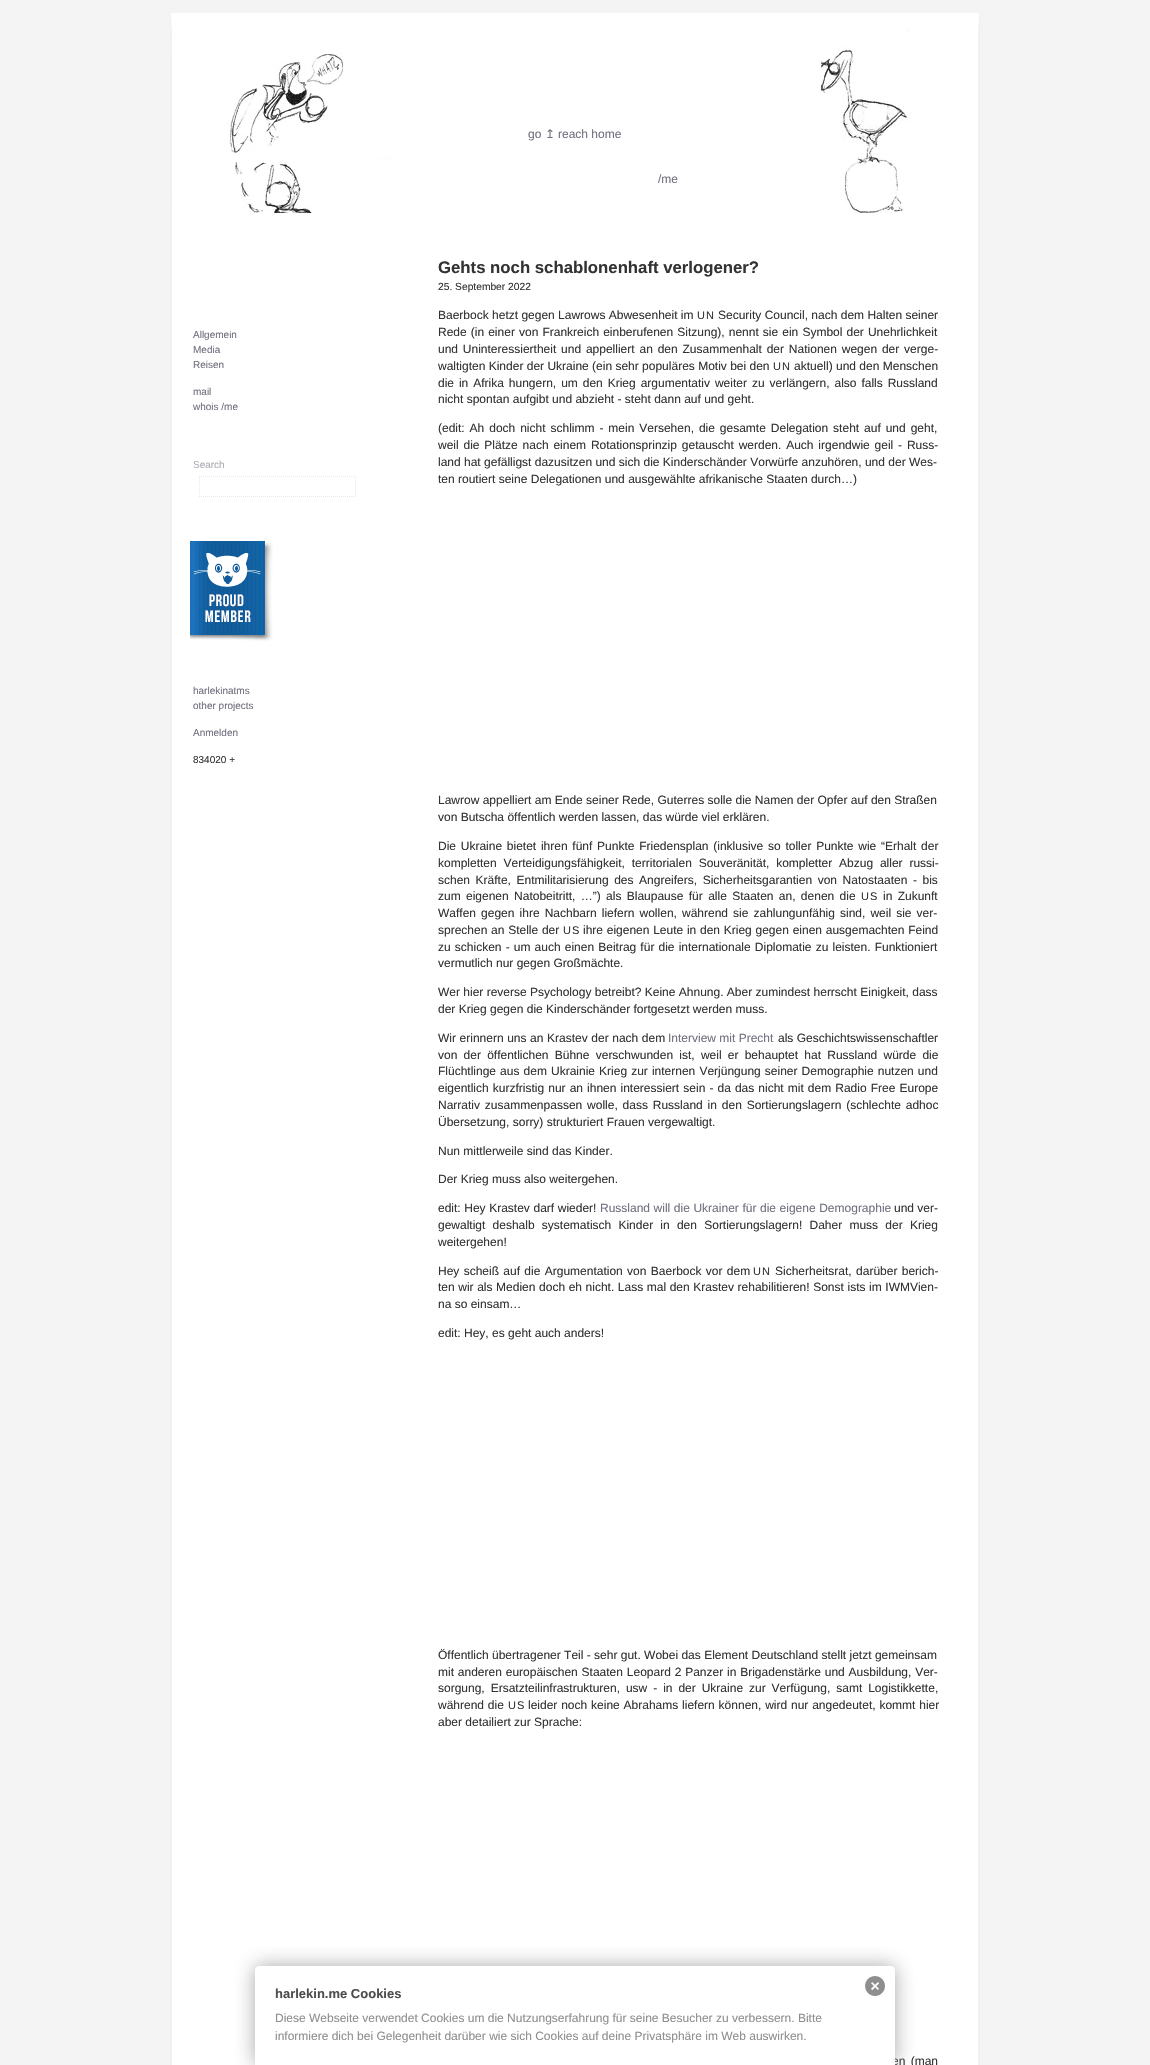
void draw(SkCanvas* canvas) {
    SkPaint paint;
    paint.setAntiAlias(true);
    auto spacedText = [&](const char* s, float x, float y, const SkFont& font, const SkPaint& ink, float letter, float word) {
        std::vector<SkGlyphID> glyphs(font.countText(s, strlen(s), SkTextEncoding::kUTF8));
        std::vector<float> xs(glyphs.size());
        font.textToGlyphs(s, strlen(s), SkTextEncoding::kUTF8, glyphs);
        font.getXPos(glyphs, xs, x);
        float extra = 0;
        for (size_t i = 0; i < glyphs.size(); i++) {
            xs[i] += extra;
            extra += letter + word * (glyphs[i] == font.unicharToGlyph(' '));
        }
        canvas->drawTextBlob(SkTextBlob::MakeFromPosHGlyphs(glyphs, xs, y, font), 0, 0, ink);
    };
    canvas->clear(0xFFF4F4F4);
    canvas->drawImageRect(SkImages::DeferredFromEncodedData(SkData::MakeFromFileName("img1.png")), SkRect::MakeXYWH(170, 13, 810, 2052), SkSamplingOptions());
    paint.setColor(0xFFFFFFFF);
    canvas->drawRect(SkRect::MakeXYWH(171, 13, 808, 7), paint);
    canvas->drawImageRect(SkImages::DeferredFromEncodedData(SkData::MakeFromFileName("img2.png")), SkRect::MakeXYWH(171, 20, 808, 193), SkSamplingOptions());
    SkFont font1(fontMgr->matchFamilyStyle("Liberation Sans", SkFontStyle::Normal()), 12);
    font1.setSubpixel(true);
    paint.setColor(0xFF70707F);
    canvas->drawString("go", 528, 138, font1, paint);
    SkFont font2(fontMgr->matchFamilyStyle("DejaVu Sans", SkFontStyle::Normal()), 12);
    font2.setSubpixel(true);
    canvas->drawString("↥", 545, 138, font2, paint);
    canvas->drawString("reach home", 558, 138, font1, paint);
    canvas->drawString("/me", 658, 183, font1, paint);
    SkFont font3(fontMgr->matchFamilyStyle("Liberation Sans", SkFontStyle::Normal()), 10);
    font3.setSubpixel(true);
    canvas->drawString("Allgemein", 193, 338, font3, paint);
    canvas->drawString("Media", 193, 353, font3, paint);
    canvas->drawString("Reisen", 193, 368, font3, paint);
    canvas->drawString("mail", 193, 395, font3, paint);
    canvas->drawString("whois /me", 193, 410, font3, paint);
    paint.setColor(0xFFABADB3);
    canvas->drawString("Search", 193, 468, font3, paint);
    paint.setStyle(SkPaint::kStroke_Style);
    paint.setStrokeWidth(1);
    paint.setColor(0xFFE7E7E7);
    paint.setPathEffect(SkDashPathEffect::Make({{1, 1}}, 0));
    canvas->drawPath(SkPathBuilder().moveTo(199, 476.5f).lineTo(356, 476.5f).detach(), paint);
    paint.setPathEffect(nullptr);
    paint.setPathEffect(SkDashPathEffect::Make({{1, 1}}, 0));
    canvas->drawPath(SkPathBuilder().moveTo(355.5f, 476).lineTo(355.5f, 497).detach(), paint);
    paint.setPathEffect(nullptr);
    paint.setPathEffect(SkDashPathEffect::Make({{1, 1}}, 0));
    canvas->drawPath(SkPathBuilder().moveTo(199, 496.5f).lineTo(356, 496.5f).detach(), paint);
    paint.setPathEffect(nullptr);
    paint.setPathEffect(SkDashPathEffect::Make({{1, 1}}, 0));
    canvas->drawPath(SkPathBuilder().moveTo(199.5f, 476).lineTo(199.5f, 497).detach(), paint);
    paint.setPathEffect(nullptr);
    canvas->drawImageRect(SkImages::DeferredFromEncodedData(SkData::MakeFromFileName("img3.png")), SkRect::MakeXYWH(190, 541, 83, 100), SkSamplingOptions());
    paint.setStyle(SkPaint::kFill_Style);
    paint.setColor(0xFF70707F);
    canvas->drawString("harlekinatms", 193, 694, font3, paint);
    canvas->drawString("other projects", 193, 709, font3, paint);
    canvas->drawString("Anmelden", 193, 736, font3, paint);
    paint.setColor(0xFF333333);
    canvas->drawString("834020 +", 193, 763, font3, paint);
    SkFont font4(fontMgr->matchFamilyStyle("Liberation Sans", SkFontStyle::Bold()), 16.75f);
    font4.setSubpixel(true);
    canvas->drawString("Gehts noch schablonenhaft verlogener?", 438, 273, font4, paint);
    SkFont font5(fontMgr->matchFamilyStyle("Liberation Sans", SkFontStyle::Normal()), 10.25f);
    font5.setSubpixel(true);
    canvas->drawString("25. September 2022", 438, 290, font5, paint);
    canvas->drawString("Baerbock hetzt gegen Lawrows Abwesenheit im", 438, 319, font1, paint);
    SkFont font6(fontMgr->matchFamilyStyle("Liberation Sans", SkFontStyle::Normal()), 11);
    font6.setSubpixel(true);
    spacedText("UN", 697, 319, font6, paint, 1, 0);
    canvas->drawString("Security Council, nach dem Halten seiner", 718, 319, font1, paint);
    spacedText("Rede (in einer von Frankreich einberufenen Sitzung), nennt sie ein Symbol der Unehrlichkeit", 438, 336, font1, paint, 0, 0.75f);
    spacedText("und Uninteressiertheit und appelliert an den Zusammenhalt der Nationen wegen der verge-", 438, 353, font1, paint, 0, 1.5f);
    canvas->drawString("waltigten Kinder der Ukraine (ein sehr populäres Motiv bei den", 438, 370, font1, paint);
    spacedText("UN", 773, 370, font6, paint, 1, 0);
    canvas->drawString("aktuell) und den Menschen", 794, 370, font1, paint);
    spacedText("die in Afrika hungern, um den Krieg argumentativ weiter zu verlängern, also falls Russland", 438, 387, font1, paint, 0, 1.6f);
    canvas->drawString("nicht spontan aufgibt und abzieht - steht dann auf und geht.", 438, 403, font1, paint);
    spacedText("(edit: Ah doch nicht schlimm - mein Versehen, die gesamte Delegation steht auf und geht,", 438, 432, font1, paint, 0, 1.6f);
    spacedText("weil die Plätze nach einem Rotationsprinzip getauscht werden. Auch irgendwie geil - Russ-", 438, 449, font1, paint, 0, 1.5f);
    canvas->drawString("land hat gefälligst dazusitzen und sich die Kinderschänder Vorwürfe anzuhören, und der Wes-", 438, 466, font1, paint);
    canvas->drawString("ten routiert seine Delegationen und ausgewählte afrikanische Staaten durch…)", 438, 483, font1, paint);
    canvas->drawString("Lawrow appelliert am Ende seiner Rede, Guterres solle die Namen der Opfer auf den Straßen", 438, 804, font1, paint);
    canvas->drawString("von Butscha öffentlich werden lassen, das würde viel erklären.", 438, 821, font1, paint);
    spacedText("Die Ukraine bietet ihren fünf Punkte Friedensplan (inklusive so toller Punkte wie “Erhalt der", 438, 850, font1, paint, 0, 1.4f);
    spacedText("kompletten Verteidigungsfähigkeit, territorialen Souveränität, kompletter Abzug aller russi-", 438, 867, font1, paint, 0, 3.5f);
    spacedText("schen Kräfte, Entmilitarisierung des Angreifers, Sicherheitsgarantien von Natostaaten - bis", 438, 884, font1, paint, 0, 2.25f);
    spacedText("zum eigenen Natobeitritt, …”) als Blaupause für alle Staaten an, denen die", 438, 900, font1, paint, 0, 2);
    spacedText("US", 861, 900, font6, paint, 1, 0);
    spacedText("in Zukunft", 883, 900, font1, paint, 0, 2);
    spacedText("Waffen gegen ihre Nachbarn liefern wollen, während sie zahlungunfähig sind, weil sie ver-", 438, 917, font1, paint, 0, 1.75f);
    spacedText("sprechen an Stelle der", 438, 934, font1, paint, 0, 0.4f);
    spacedText("US", 563, 934, font6, paint, 1, 0);
    spacedText("ihre eigenen Leute in den Krieg gegen einen ausgemachten Feind", 583, 934, font1, paint, 0, 0.4f);
    spacedText("zu schicken - um auch einen Beitrag für die internationale Diplomatie zu leisten. Funktioniert", 438, 951, font1, paint, 0, 0.8f);
    canvas->drawString("vermutlich nur gegen Großmächte.", 438, 967, font1, paint);
    canvas->drawString("Wer hier reverse Psychology betreibt? Keine Ahnung. Aber zumindest herrscht Einigkeit, dass", 438, 996, font1, paint);
    canvas->drawString("der Krieg gegen die Kinderschänder fortgesetzt werden muss.", 438, 1013, font1, paint);
    spacedText("Wir erinnern uns an Krastev der nach dem", 438, 1042, font1, paint, 0, 0.25f);
    paint.setColor(0xFF70707F);
    canvas->drawString("Interview mit Precht", 668, 1042, font1, paint);
    paint.setColor(0xFF333333);
    canvas->drawString("als Geschichtswissenschaftler", 778, 1042, font1, paint);
    spacedText("von der öffentlichen Bühne verschwunden ist, weil er behauptet hat Russland würde die", 438, 1059, font1, paint, 0, 2.9f);
    spacedText("Flüchtlinge aus dem Ukrainie Krieg zur internen Verjüngung seiner Demographie nutzen und", 438, 1075, font1, paint, 0, 0.75f);
    spacedText("eigentlich kurzfristig nur an ihnen interessiert sein - da das nicht mit dem Radio Free Europe", 438, 1092, font1, paint, 0, 0.75f);
    spacedText("Narrativ zusammenpassen wolle, dass Russland in den Sortierungslagern (schlechte adhoc", 438, 1109, font1, paint, 0, 1.5f);
    canvas->drawString("Übersetzung, sorry) strukturiert Frauen vergewaltigt.", 438, 1126, font1, paint);
    canvas->drawString("Nun mittlerweile sind das Kinder.", 438, 1155, font1, paint);
    canvas->drawString("Der Krieg muss also weitergehen.", 438, 1183, font1, paint);
    spacedText("edit: Hey Krastev darf wieder!", 438, 1212, font1, paint, 0, 0.25f);
    paint.setColor(0xFF70707F);
    spacedText("Russland will die Ukrainer für die eigene Demographie", 600, 1212, font1, paint, 0, 0.25f);
    paint.setColor(0xFF333333);
    canvas->drawString("und ver-", 894, 1212, font1, paint);
    spacedText("gewaltigt deshalb systematisch Kinder in den Sortierungslagern! Daher muss der Krieg", 438, 1229, font1, paint, 0, 3.9f);
    canvas->drawString("weitergehen!", 438, 1246, font1, paint);
    spacedText("Hey scheiß auf die Argumentation von Baerbock vor dem", 438, 1275, font1, paint, 0, 1);
    spacedText("UN", 753, 1275, font6, paint, 1, 0);
    spacedText("Sicherheitsrat, darüber berich-", 775, 1275, font1, paint, 0, 1);
    spacedText("ten wir als Medien doch eh nicht. Lass mal den Krastev rehabilitieren! Sonst ists im IWMVien-", 438, 1291, font1, paint, 0, 0.25f);
    canvas->drawString("na so einsam…", 438, 1308, font1, paint);
    canvas->drawString("edit: Hey, es geht auch anders!", 438, 1337, font1, paint);
    canvas->drawString("Öffentlich übertragener Teil - sehr gut. Wobei das Element Deutschland stellt jetzt gemeinsam", 438, 1659, font1, paint);
    spacedText("mit anderen europäischen Staaten Leopard 2 Panzer in Brigadenstärke und Ausbildung, Ver-", 438, 1676, font1, paint, 0, 0.5f);
    spacedText("sorgung, Ersatzteilinfrastrukturen, usw - in der Ukraine zur Verfügung, samt Logistikkette,", 438, 1692, font1, paint, 0, 2.6f);
    spacedText("während die", 438, 1709, font1, paint, 0, 0.5f);
    spacedText("US", 508, 1709, font6, paint, 1, 0);
    spacedText("leider noch keine Abrahams liefern können, wird nur angedeutet, kommt hier", 528, 1709, font1, paint, 0, 0.5f);
    canvas->drawString("aber detailiert zur Sprache:", 438, 1726, font1, paint);
    spacedText("en (man", 892, 2065, font1, paint, 0, 2);
    canvas->save();
    canvas->clipPath(SkPathBuilder(SkPathFillType::kEvenOdd).moveTo(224, 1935).lineTo(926, 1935).lineTo(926, 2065).lineTo(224, 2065).close().moveTo(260, 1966).lineTo(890, 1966).cubicTo(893, 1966, 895, 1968, 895, 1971).lineTo(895, 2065).lineTo(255, 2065).lineTo(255, 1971).cubicTo(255, 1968, 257, 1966, 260, 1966).close().detach(), true);
    paint.setColor(0xF2A1A1A1);
    paint.setMaskFilter(SkMaskFilter::MakeBlur(kNormal_SkBlurStyle, 10));
    canvas->drawRoundRect(SkRect::MakeXYWH(255, 1966, 640, 99), 5, 5, paint);
    paint.setMaskFilter(nullptr);
    canvas->restore();
    paint.setColor(0xF2FFFFFF);
    canvas->drawPath(SkPathBuilder().moveTo(260, 1966).lineTo(890, 1966).cubicTo(893, 1966, 895, 1968, 895, 1971).lineTo(895, 2065).lineTo(255, 2065).lineTo(255, 1971).cubicTo(255, 1968, 257, 1966, 260, 1966).close().detach(), paint);
    SkFont font7(fontMgr->matchFamilyStyle("Liberation Sans", SkFontStyle::Bold()), 13);
    font7.setSubpixel(true);
    paint.setColor(0xFF4D4D4D);
    canvas->drawString("harlekin.me Cookies", 275, 1998, font7, paint);
    canvas->drawImageRect(SkImages::DeferredFromEncodedData(SkData::MakeFromFileName("img4.png")), SkRect::MakeXYWH(865, 1976, 20, 20), SkSamplingOptions());
    paint.setColor(0xFF8E8E8E);
    canvas->drawString("Diese Webseite verwendet Cookies um die Nutzungserfahrung für seine Besucher zu verbessern. Bitte", 275, 2022, font1, paint);
    canvas->drawString("informiere dich bei Gelegenheit darüber wie sich Cookies auf deine Privatsphäre im Web auswirken.", 275, 2040, font1, paint);
}
